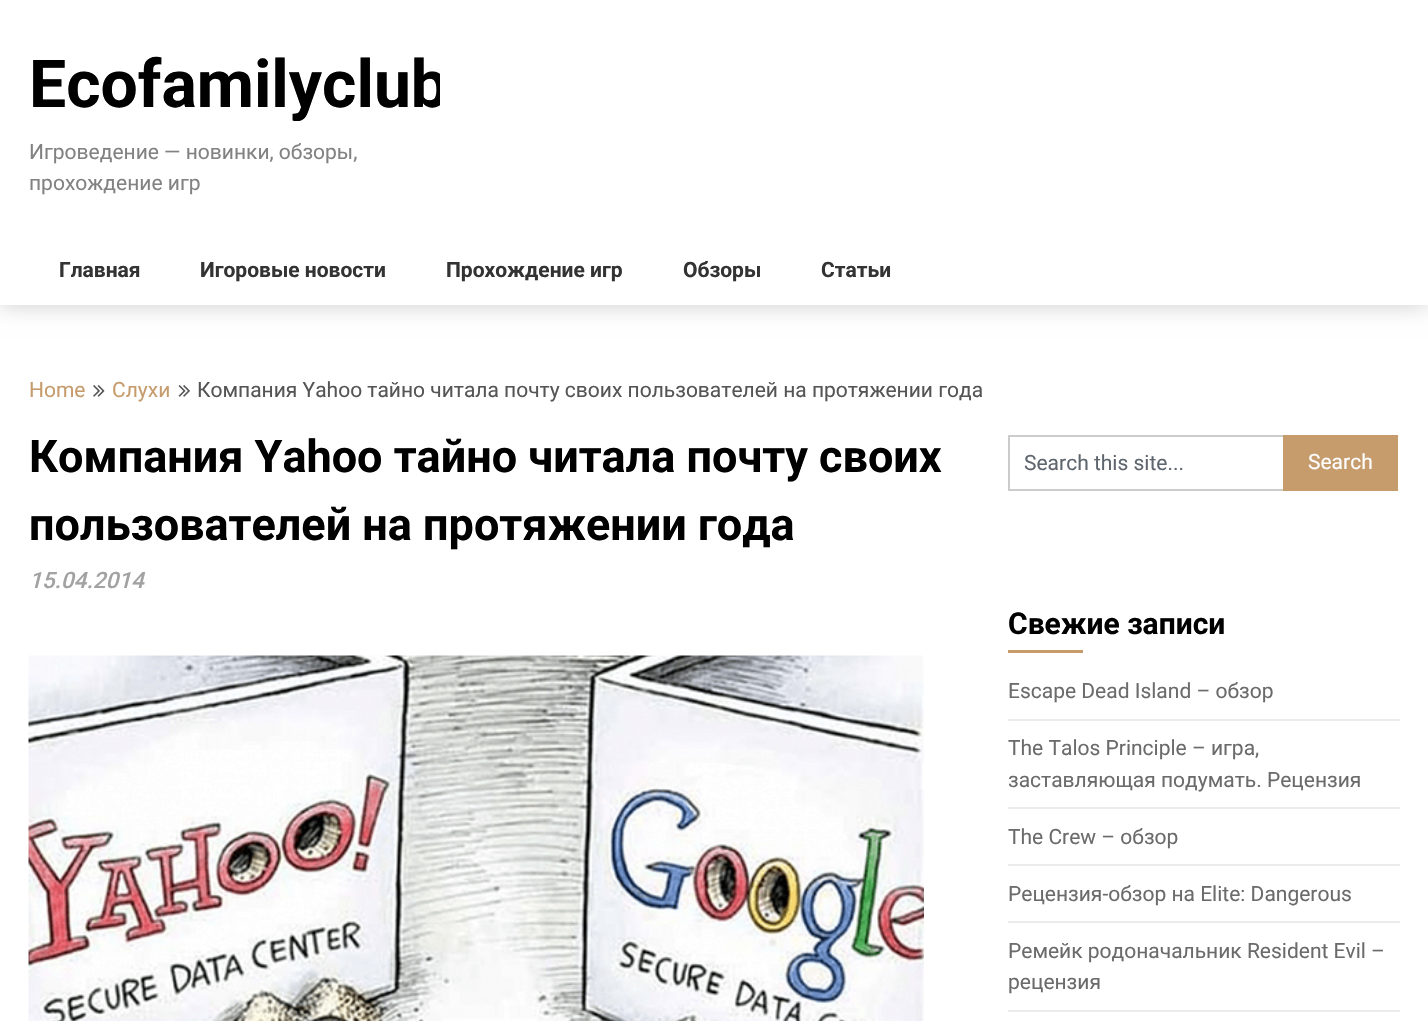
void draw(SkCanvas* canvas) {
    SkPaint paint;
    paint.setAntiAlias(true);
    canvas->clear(0xFFFFFFFF);
    paint.setColor(0x33000000);
    paint.setMaskFilter(SkMaskFilter::MakeBlur(kNormal_SkBlurStyle, 11));
    canvas->drawRect(SkRect::MakeXYWH(0, 0, 1428, 305), paint);
    paint.setMaskFilter(nullptr);
    paint.setColor(0xFFFFFFFF);
    canvas->drawRect(SkRect::MakeXYWH(0, 0, 1428, 305), paint);
    canvas->save();
    canvas->clipRect(SkRect::MakeXYWH(29, 30, 411, 185));
    SkFont font1(fontMgr->matchFamilyStyle("Roboto", SkFontStyle::Bold()), 66);
    font1.setSubpixel(true);
    paint.setColor(0xFF000000);
    canvas->drawString("Ecofamilyclub", 29, 107, font1, paint);
    canvas->restore();
    SkFont font2(fontMgr->matchFamilyStyle("Roboto", SkFontStyle::Normal()), 21);
    font2.setSubpixel(true);
    paint.setColor(0xFF828282);
    canvas->drawString("Игроведение — новинки, обзоры,", 29, 159, font2, paint);
    canvas->drawString("прохождение игр", 29, 190, font2, paint);
    SkFont font3(fontMgr->matchFamilyStyle("Roboto", SkFontStyle::Bold()), 21);
    font3.setSubpixel(true);
    paint.setColor(0xFF333333);
    canvas->drawString("Главная", 59, 277, font3, paint);
    canvas->drawString("Игоровые новости", 200, 277, font3, paint);
    canvas->drawString("Прохождение игр", 446, 277, font3, paint);
    canvas->drawString("Обзоры", 683, 277, font3, paint);
    canvas->drawString("Статьи", 821, 277, font3, paint);
    paint.setColor(0xFFC69C6D);
    canvas->drawString("Home", 29, 397, font2, paint);
    canvas->drawImageRect(SkImages::DeferredFromEncodedData(SkData::MakeFromFileName("img1.png")), SkRect::MakeXYWH(93, 385, 12, 12), SkSamplingOptions());
    canvas->drawString("Слухи", 112, 397, font2, paint);
    canvas->drawImageRect(SkImages::DeferredFromEncodedData(SkData::MakeFromFileName("img2.png")), SkRect::MakeXYWH(178, 385, 12, 12), SkSamplingOptions());
    paint.setColor(0xFF555555);
    canvas->drawString("Компания Yahoo тайно читала почту своих пользователей на протяжении года", 197, 397, font2, paint);
    SkFont font4(fontMgr->matchFamilyStyle("Roboto", SkFontStyle::Bold()), 45);
    font4.setSubpixel(true);
    paint.setColor(0xFF000000);
    canvas->drawString("Компания Yahoo тайно читала почту своих", 29, 472, font4, paint);
    canvas->drawString("пользователей на протяжении года", 29, 540, font4, paint);
    SkFont font5(fontMgr->matchFamilyStyle("Roboto", SkFontStyle(500, SkFontStyle::kNormal_Width, SkFontStyle::kItalic_Slant)), 22.5f);
    font5.setSubpixel(true);
    paint.setColor(0xFFA2A2A2);
    canvas->drawString("15.04.2014", 29, 588, font5, paint);
    canvas->drawImageRect(SkImages::DeferredFromEncodedData(SkData::MakeFromFileName("img3.png")), SkRect::MakeXYWH(28, 655, 896, 366), SkSamplingOptions());
    paint.setColor(0xFFCCCCCC);
    canvas->drawRect(SkRect::MakeXYWH(1008, 435, 275, 2), paint);
    canvas->drawRect(SkRect::MakeXYWH(1008, 489, 275, 2), paint);
    canvas->drawRect(SkRect::MakeXYWH(1008, 435, 2, 56), paint);
    paint.setColor(0xFF5E656D);
    canvas->drawString("Search this site...", 1024, 470, font2, paint);
    paint.setColor(0xFFC69C6D);
    canvas->drawRect(SkRect::MakeXYWH(1283, 435, 115, 56), paint);
    paint.setColor(0xFFFFFFFF);
    canvas->drawString("Search", 1308, 469, font2, paint);
    SkFont font6(fontMgr->matchFamilyStyle("Roboto", SkFontStyle::Bold()), 30);
    font6.setSubpixel(true);
    paint.setColor(0xFF000000);
    canvas->drawString("Свежие записи", 1008, 634, font6, paint);
    paint.setColor(0xFFC69C6D);
    canvas->drawRect(SkRect::MakeXYWH(1008, 650, 75, 3), paint);
    paint.setColor(0xFFEBEBEB);
    canvas->drawRect(SkRect::MakeXYWH(1008, 719, 392, 2), paint);
    paint.setColor(0xFF6B6B6B);
    canvas->drawString("Escape Dead Island – обзор", 1008, 698, font2, paint);
    paint.setColor(0xFFEBEBEB);
    canvas->drawRect(SkRect::MakeXYWH(1008, 807, 392, 2), paint);
    paint.setColor(0xFF6B6B6B);
    canvas->drawString("The Talos Principle – игра,", 1008, 755, font2, paint);
    canvas->drawString("заставляющая подумать. Рецензия", 1008, 787, font2, paint);
    paint.setColor(0xFFEBEBEB);
    canvas->drawRect(SkRect::MakeXYWH(1008, 864, 392, 2), paint);
    paint.setColor(0xFF6B6B6B);
    canvas->drawString("The Crew – обзор", 1008, 844, font2, paint);
    paint.setColor(0xFFEBEBEB);
    canvas->drawRect(SkRect::MakeXYWH(1008, 921, 392, 2), paint);
    paint.setColor(0xFF6B6B6B);
    canvas->drawString("Рецензия-обзор на Elite: Dangerous", 1008, 901, font2, paint);
    paint.setColor(0xFFEBEBEB);
    canvas->drawRect(SkRect::MakeXYWH(1008, 1010, 392, 2), paint);
    paint.setColor(0xFF6B6B6B);
    canvas->drawString("Ремейк родоначальник Resident Evil –", 1008, 958, font2, paint);
    canvas->drawString("рецензия", 1008, 989, font2, paint);
}
